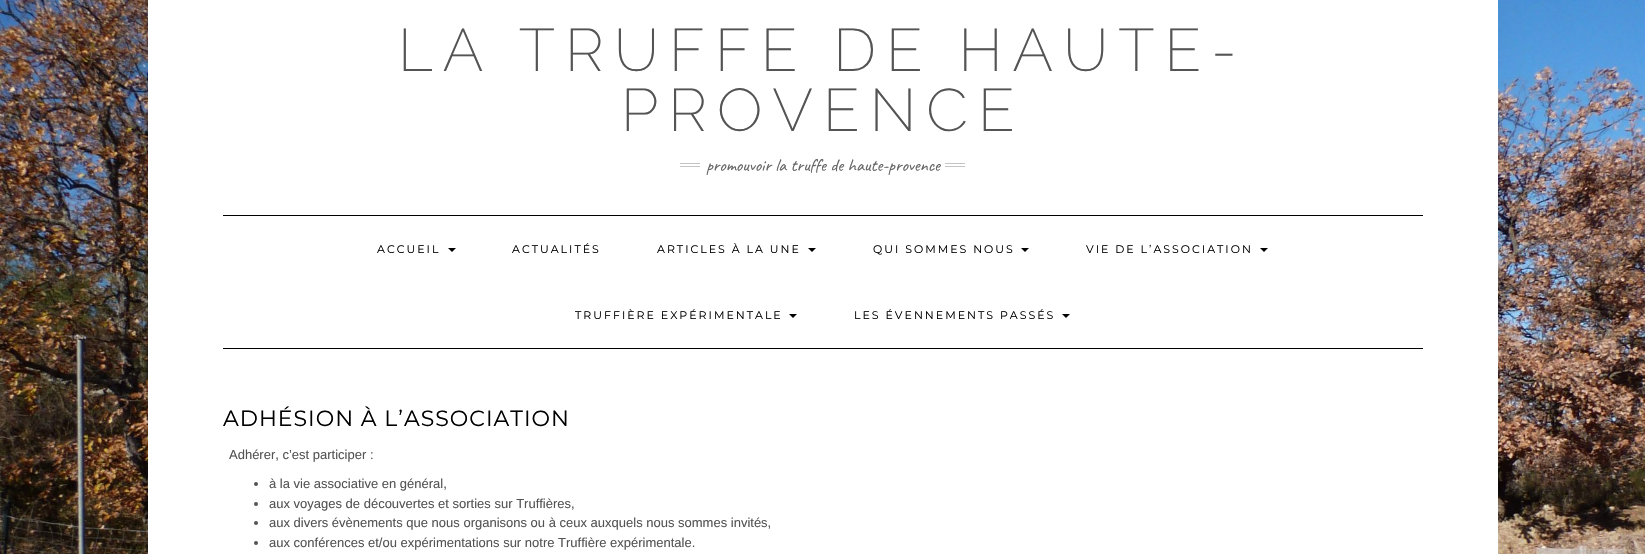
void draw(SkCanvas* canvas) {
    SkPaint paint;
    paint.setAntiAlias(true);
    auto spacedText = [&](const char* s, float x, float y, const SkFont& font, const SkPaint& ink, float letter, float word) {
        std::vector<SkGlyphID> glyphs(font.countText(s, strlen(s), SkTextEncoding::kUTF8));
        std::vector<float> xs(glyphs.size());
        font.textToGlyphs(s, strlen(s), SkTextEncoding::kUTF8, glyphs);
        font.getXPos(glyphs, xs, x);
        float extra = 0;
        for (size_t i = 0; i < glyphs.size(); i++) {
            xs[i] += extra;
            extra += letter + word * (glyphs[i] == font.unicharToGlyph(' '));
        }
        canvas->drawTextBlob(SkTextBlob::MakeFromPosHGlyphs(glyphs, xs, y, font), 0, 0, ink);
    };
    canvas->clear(0xFFFFFFFF);
    canvas->drawImageRect(SkImages::DeferredFromEncodedData(SkData::MakeFromFileName("img1.png")), SkRect::MakeXYWH(0, 0, 1645, 554), SkSamplingOptions());
    paint.setColor(0x0F000000);
    paint.setMaskFilter(SkMaskFilter::MakeBlur(kNormal_SkBlurStyle, 25));
    canvas->drawRect(SkRect::MakeXYWH(148, 0, 1350, 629), paint);
    paint.setMaskFilter(nullptr);
    paint.setColor(0xFFFFFFFF);
    canvas->drawRect(SkRect::MakeXYWH(148, 0, 1350, 554), paint);
    SkFont font1(fontMgr->matchFamilyStyle("Raleway", SkFontStyle(100, SkFontStyle::kNormal_Width, SkFontStyle::kUpright_Slant)), 60);
    font1.setSubpixel(true);
    paint.setColor(0xFF545454);
    spacedText("LA TRUFFE DE HAUTE-", 398, 71, font1, paint, 10, 0);
    spacedText("PROVENCE", 621, 131, font1, paint, 10, 0);
    paint.setColor(0xFFC4C4C4);
    canvas->drawRect(SkRect::MakeXYWH(680, 163, 20, 1), paint);
    canvas->drawRect(SkRect::MakeXYWH(680, 166, 20, 1), paint);
    SkFont font2(fontMgr->matchFamilyStyle("Caveat", SkFontStyle::Normal()), 18);
    font2.setSubpixel(true);
    paint.setColor(0xFF646464);
    canvas->drawString("promouvoir la truffe de haute-provence", 706, 171, font2, paint);
    paint.setColor(0xFFC4C4C4);
    canvas->drawRect(SkRect::MakeXYWH(945, 163, 20, 1), paint);
    canvas->drawRect(SkRect::MakeXYWH(945, 166, 20, 1), paint);
    paint.setColor(0xFF000000);
    canvas->drawRect(SkRect::MakeXYWH(223, 215, 1200, 1), paint);
    canvas->drawRect(SkRect::MakeXYWH(223, 348, 1200, 1), paint);
    SkFont font3(fontMgr->matchFamilyStyle("Montserrat", SkFontStyle::Normal()), 11);
    font3.setSubpixel(true);
    spacedText("ACCUEIL", 377, 253, font3, paint, 2, 0);
    canvas->drawPath(SkPathBuilder().moveTo(448, 248).lineTo(456, 248).lineTo(452, 252).close().detach(), paint);
    spacedText("ACTUALITÉS", 512, 253, font3, paint, 2, 0);
    spacedText("ARTICLES À LA UNE", 657, 253, font3, paint, 2, 0);
    canvas->drawPath(SkPathBuilder().moveTo(808, 248).lineTo(816, 248).lineTo(812, 252).close().detach(), paint);
    spacedText("QUI SOMMES NOUS", 873, 253, font3, paint, 2, 0);
    canvas->drawPath(SkPathBuilder().moveTo(1021, 248).lineTo(1029, 248).lineTo(1025, 252).close().detach(), paint);
    spacedText("VIE DE L’ASSOCIATION", 1086, 253, font3, paint, 2, 0);
    canvas->drawPath(SkPathBuilder().moveTo(1260, 248).lineTo(1268, 248).lineTo(1264, 252).close().detach(), paint);
    spacedText("TRUFFIÈRE EXPÉRIMENTALE", 575, 319, font3, paint, 2, 0);
    canvas->drawPath(SkPathBuilder().moveTo(789, 314).lineTo(797, 314).lineTo(793, 318).close().detach(), paint);
    spacedText("LES ÉVENNEMENTS PASSÉS", 854, 319, font3, paint, 2, 0);
    canvas->drawPath(SkPathBuilder().moveTo(1062, 314).lineTo(1070, 314).lineTo(1066, 318).close().detach(), paint);
    SkFont font4(fontMgr->matchFamilyStyle("Montserrat", SkFontStyle::Normal()), 22);
    font4.setSubpixel(true);
    spacedText("ADHÉSION À L’ASSOCIATION", 223, 426, font4, paint, 1, 0);
    SkFont font5(fontMgr->matchFamilyStyle("Liberation Sans", SkFontStyle::Normal()), 13);
    font5.setSubpixel(true);
    paint.setColor(0xFF545454);
    canvas->drawString("Adhérer, c’est participer :", 229, 459, font5, paint);
    canvas->drawCircle(256, 484, 2, paint);
    canvas->drawString("à la vie associative en général,", 269, 488, font5, paint);
    canvas->drawCircle(256, 504, 2, paint);
    canvas->drawString("aux voyages de découvertes et sorties sur Truffières,", 269, 508, font5, paint);
    canvas->drawCircle(256, 523, 2, paint);
    canvas->drawString("aux divers évènements que nous organisons ou à ceux auxquels nous sommes invités,", 269, 527, font5, paint);
    canvas->drawCircle(256, 543, 2, paint);
    canvas->drawString("aux conférences et/ou expérimentations sur notre Truffière expérimentale.", 269, 547, font5, paint);
}
